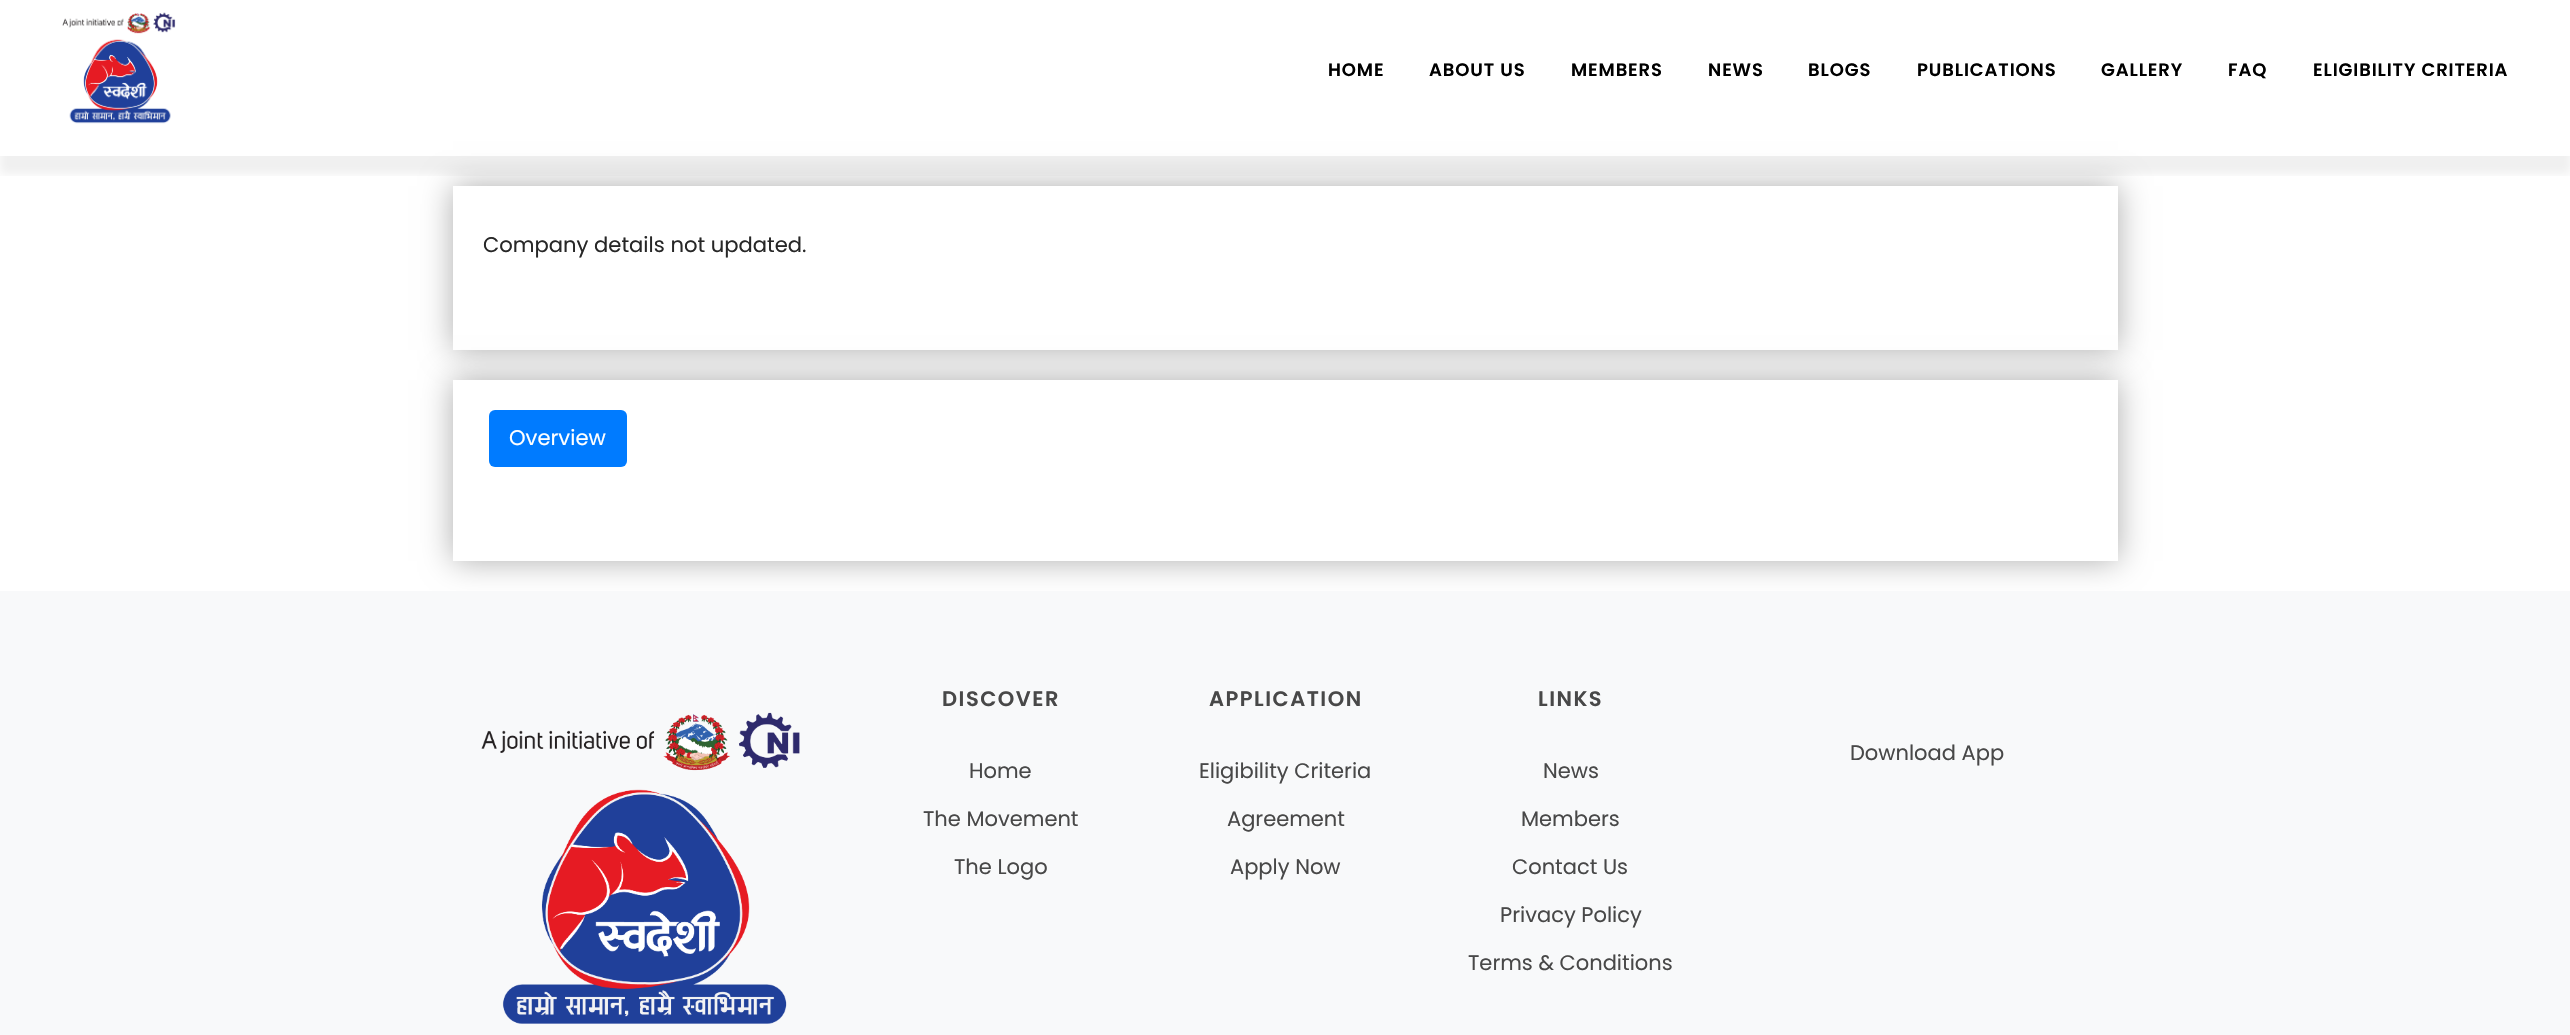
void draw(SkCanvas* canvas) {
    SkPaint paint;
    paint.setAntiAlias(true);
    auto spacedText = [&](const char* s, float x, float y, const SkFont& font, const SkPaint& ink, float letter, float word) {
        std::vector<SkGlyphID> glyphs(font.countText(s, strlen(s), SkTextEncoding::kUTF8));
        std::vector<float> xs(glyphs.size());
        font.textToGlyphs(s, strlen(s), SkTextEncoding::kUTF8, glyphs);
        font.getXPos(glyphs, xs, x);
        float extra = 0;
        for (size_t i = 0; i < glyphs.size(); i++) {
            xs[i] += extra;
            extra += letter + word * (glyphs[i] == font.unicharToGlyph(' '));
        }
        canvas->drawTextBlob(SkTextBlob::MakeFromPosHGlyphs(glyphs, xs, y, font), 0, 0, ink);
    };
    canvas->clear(0xFFFFFFFF);
    paint.setColor(0x52000000);
    paint.setMaskFilter(SkMaskFilter::MakeBlur(kNormal_SkBlurStyle, 15));
    canvas->drawRect(SkRect::MakeXYWH(453, 186, 1665, 164), paint);
    paint.setMaskFilter(nullptr);
    paint.setColor(0xFFFFFFFF);
    canvas->drawRect(SkRect::MakeXYWH(453, 186, 1665, 164), paint);
    canvas->save();
    canvas->clipRect(SkRect::MakeXYWH(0, 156, 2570, 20));
    paint.setColor(0x0F000000);
    paint.setMaskFilter(SkMaskFilter::MakeBlur(kNormal_SkBlurStyle, 4.5f));
    canvas->drawRect(SkRect::MakeXYWH(0, 12, 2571, 162), paint);
    paint.setMaskFilter(nullptr);
    canvas->restore();
    canvas->drawImageRect(SkImages::DeferredFromEncodedData(SkData::MakeFromFileName("img1.png")), SkRect::MakeXYWH(62, 12, 114, 112), SkSamplingOptions());
    SkFont font1(fontMgr->matchFamilyStyle("Poppins", SkFontStyle(600, SkFontStyle::kNormal_Width, SkFontStyle::kUpright_Slant)), 18);
    font1.setSubpixel(true);
    paint.setColor(0xFF000000);
    spacedText("HOME", 1328, 76, font1, paint, 0.9f, 0);
    spacedText("ABOUT US", 1429, 76, font1, paint, 0.9f, 0);
    spacedText("MEMBERS", 1571, 76, font1, paint, 0.9f, 0);
    spacedText("NEWS", 1708, 76, font1, paint, 0.9f, 0);
    spacedText("BLOGS", 1808, 76, font1, paint, 0.9f, 0);
    spacedText("PUBLICATIONS", 1917, 76, font1, paint, 0.9f, 0);
    spacedText("GALLERY", 2101, 76, font1, paint, 0.9f, 0);
    spacedText("FAQ", 2228, 76, font1, paint, 0.9f, 0);
    spacedText("ELIGIBILITY CRITERIA", 2313, 76, font1, paint, 0.9f, 0);
    SkFont font2(fontMgr->matchFamilyStyle("Poppins", SkFontStyle::Normal()), 21.1f);
    font2.setSubpixel(true);
    paint.setColor(0xFF272727);
    canvas->drawString("Company details not updated.", 483, 252, font2, paint);
    paint.setColor(0x52000000);
    paint.setMaskFilter(SkMaskFilter::MakeBlur(kNormal_SkBlurStyle, 15));
    canvas->drawRect(SkRect::MakeXYWH(453, 380, 1665, 181), paint);
    paint.setMaskFilter(nullptr);
    paint.setColor(0xFFFFFFFF);
    canvas->drawRect(SkRect::MakeXYWH(453, 380, 1665, 181), paint);
    paint.setColor(0xFF007BFF);
    canvas->drawRoundRect(SkRect::MakeXYWH(489, 410, 138, 57), 6, 6, paint);
    paint.setColor(0xFFFFFFFF);
    canvas->drawString("Overview", 509, 445, font2, paint);
    paint.setColor(0xFFF8F9FA);
    canvas->drawRect(SkRect::MakeXYWH(0, 591, 2570, 444), paint);
    canvas->drawImageRect(SkImages::DeferredFromEncodedData(SkData::MakeFromFileName("img2.png")), SkRect::MakeXYWH(481, 712, 319, 312), SkSamplingOptions());
    SkFont font3(fontMgr->matchFamilyStyle("Poppins", SkFontStyle(600, SkFontStyle::kNormal_Width, SkFontStyle::kUpright_Slant)), 21);
    font3.setSubpixel(true);
    paint.setColor(0xFF484848);
    spacedText("DISCOVER", 942, 706, font3, paint, 1.5f, 0);
    SkFont font4(fontMgr->matchFamilyStyle("Poppins", SkFontStyle::Normal()), 21);
    font4.setSubpixel(true);
    canvas->drawString("Home", 969, 778, font4, paint);
    canvas->drawString("The Movement", 923, 826, font4, paint);
    canvas->drawString("The Logo", 954, 874, font4, paint);
    spacedText("APPLICATION", 1209, 706, font3, paint, 1.5f, 0);
    canvas->drawString("Eligibility Criteria", 1199, 778, font4, paint);
    canvas->drawString("Agreement", 1227, 826, font4, paint);
    canvas->drawString("Apply Now", 1230, 874, font4, paint);
    spacedText("LINKS", 1538, 706, font3, paint, 1.5f, 0);
    canvas->drawString("News", 1543, 778, font4, paint);
    canvas->drawString("Members", 1521, 826, font4, paint);
    canvas->drawString("Contact Us", 1512, 874, font4, paint);
    canvas->drawString("Privacy Policy", 1500, 922, font4, paint);
    canvas->drawString("Terms & Conditions", 1468, 970, font4, paint);
    canvas->drawString("Download App", 1850, 760, font4, paint);
}
